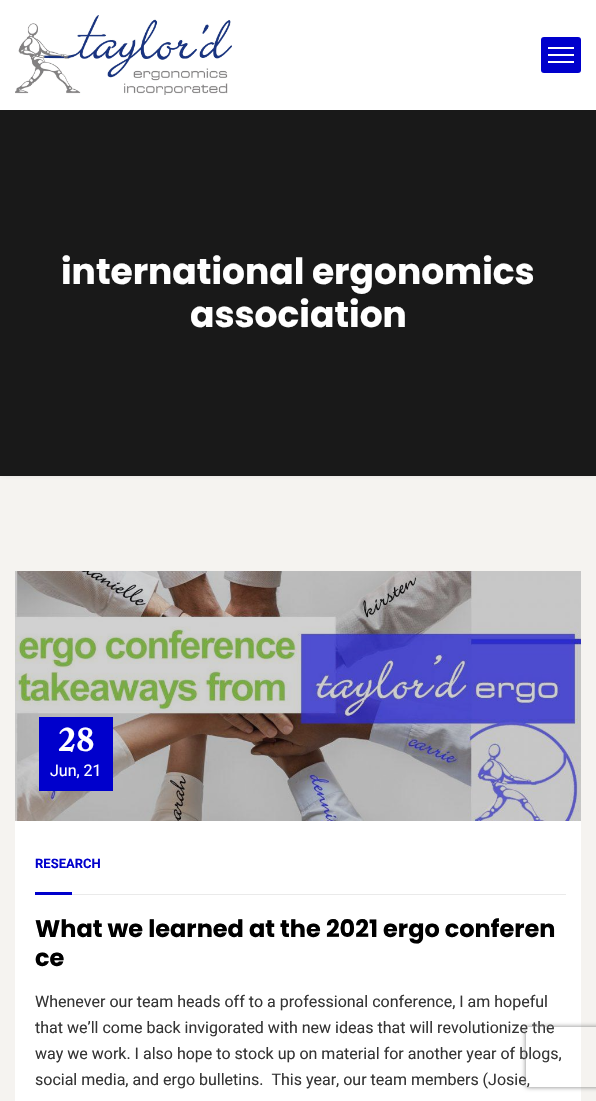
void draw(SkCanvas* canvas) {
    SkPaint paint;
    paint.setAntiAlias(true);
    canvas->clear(0xFFF5F3F0);
    paint.setColor(0x330C0C0C);
    paint.setMaskFilter(SkMaskFilter::MakeBlur(kNormal_SkBlurStyle, 3.5f));
    canvas->drawRect(SkRect::MakeXYWH(0, 107, 596, 366), paint);
    paint.setMaskFilter(nullptr);
    paint.setColor(0xFFFFFFFF);
    canvas->drawRect(SkRect::MakeXYWH(0, 0, 596, 110), paint);
    canvas->drawImageRect(SkImages::DeferredFromEncodedData(SkData::MakeFromFileName("img1.png")), SkRect::MakeXYWH(15, 15, 217, 80), SkSamplingOptions());
    paint.setColor(0xFF0000CC);
    canvas->drawRoundRect(SkRect::MakeXYWH(541, 37, 40, 36), 3, 3, paint);
    paint.setColor(0xFFFFFFFF);
    canvas->drawRect(SkRect::MakeXYWH(548, 47, 26, 2), paint);
    canvas->drawRect(SkRect::MakeXYWH(548, 54, 26, 2), paint);
    canvas->drawRect(SkRect::MakeXYWH(548, 61, 26, 2), paint);
    paint.setColor(0xFF191919);
    canvas->drawRect(SkRect::MakeXYWH(0, 110, 596, 366), paint);
    SkFont font1(fontMgr->matchFamilyStyle("Poppins", SkFontStyle::Bold()), 36);
    font1.setSubpixel(true);
    paint.setColor(0xFFFFFFFF);
    canvas->drawString("international ergonomics", 61, 284, font1, paint);
    canvas->drawString("association", 190, 327, font1, paint);
    canvas->drawImageRect(SkImages::DeferredFromEncodedData(SkData::MakeFromFileName("img2.png")), SkRect::MakeXYWH(15, 571, 566, 250), SkSamplingOptions());
    paint.setColor(0xFF0000CC);
    canvas->drawRect(SkRect::MakeXYWH(39, 717, 74, 74), paint);
    SkFont font2(fontMgr->matchFamilyStyle("Libre Caslon Text", SkFontStyle::Bold()), 30);
    font2.setSubpixel(true);
    paint.setColor(0xFFFFFFFF);
    canvas->drawString("28", 58, 751, font2, paint);
    SkFont font3(fontMgr->matchFamilyStyle("Roboto", SkFontStyle::Normal()), 16);
    font3.setSubpixel(true);
    canvas->drawString("Jun, 21", 50, 776, font3, paint);
    canvas->drawRect(SkRect::MakeXYWH(15, 821, 566, 280), paint);
    paint.setColor(0xFFEAEAEA);
    canvas->drawRect(SkRect::MakeXYWH(72, 894, 494, 1), paint);
    SkFont font4(fontMgr->matchFamilyStyle("Roboto", SkFontStyle::Bold()), 13);
    font4.setSubpixel(true);
    paint.setColor(0xFF0000CC);
    canvas->drawString("RESEARCH", 35, 868, font4, paint);
    canvas->drawRect(SkRect::MakeXYWH(35, 892, 37, 3), paint);
    SkFont font5(fontMgr->matchFamilyStyle("Poppins", SkFontStyle::Bold()), 24);
    font5.setSubpixel(true);
    paint.setColor(0xFF000000);
    canvas->drawString("What we learned at the 2021 ergo conferen", 35, 937, font5, paint);
    canvas->drawString("ce", 35, 966, font5, paint);
    paint.setColor(0xFF353535);
    canvas->drawString("Whenever our team heads off to a professional conference, I am hopeful", 35, 1007, font3, paint);
    canvas->drawString("that we’ll come back invigorated with new ideas that will revolutionize the", 35, 1033, font3, paint);
    canvas->drawString("way we work. I also hope to stock up on material for another year of blogs,", 35, 1059, font3, paint);
    canvas->drawString("social media, and ergo bulletins.  This year, our team members (Josie,", 35, 1085, font3, paint);
    canvas->save();
    canvas->clipPath(SkPathBuilder(SkPathFillType::kEvenOdd).moveTo(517, 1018).lineTo(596, 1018).lineTo(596, 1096).lineTo(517, 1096).close().moveTo(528, 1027).lineTo(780, 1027).cubicTo(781, 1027, 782, 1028, 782, 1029).lineTo(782, 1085).cubicTo(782, 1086, 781, 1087, 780, 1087).lineTo(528, 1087).cubicTo(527, 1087, 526, 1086, 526, 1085).lineTo(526, 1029).cubicTo(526, 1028, 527, 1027, 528, 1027).close().detach(), true);
    paint.setColor(0xFF808080);
    paint.setMaskFilter(SkMaskFilter::MakeBlur(kNormal_SkBlurStyle, 2.5f));
    canvas->drawRoundRect(SkRect::MakeXYWH(526, 1027, 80, 60), 2, 2, paint);
    paint.setMaskFilter(nullptr);
    canvas->restore();
}
